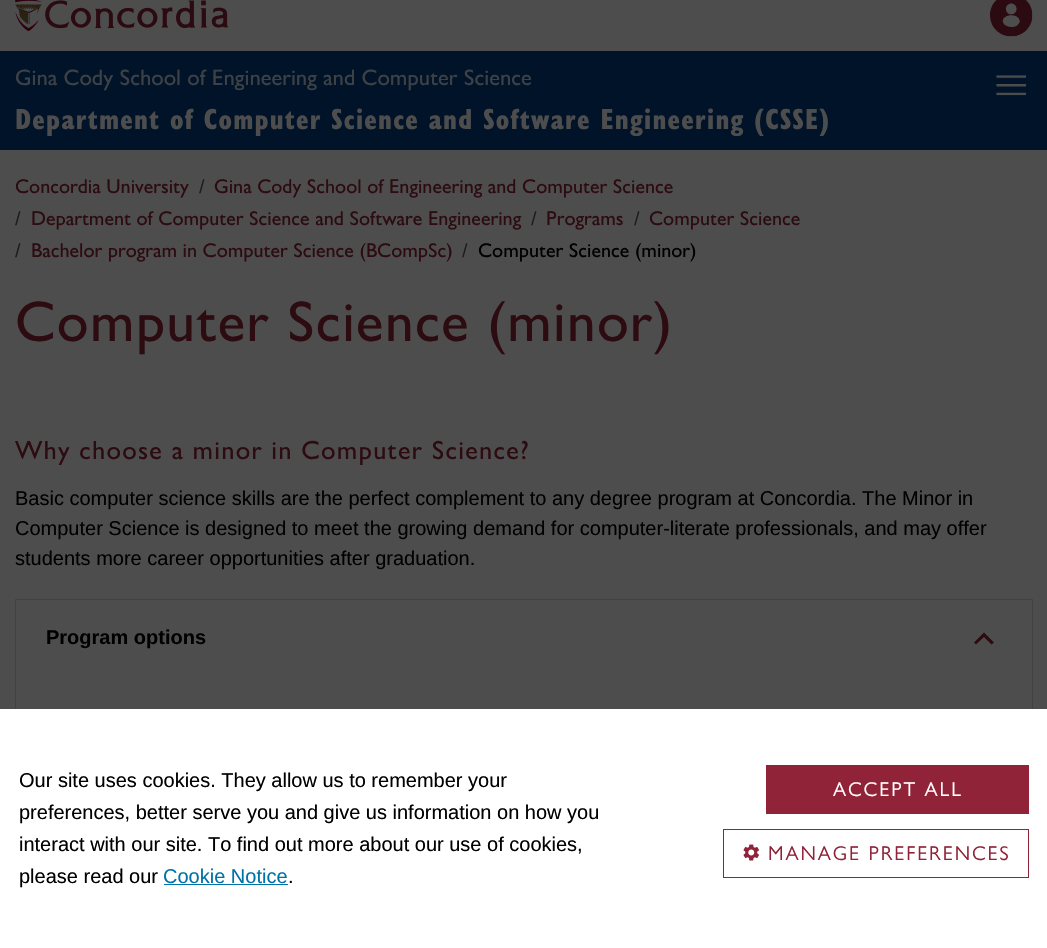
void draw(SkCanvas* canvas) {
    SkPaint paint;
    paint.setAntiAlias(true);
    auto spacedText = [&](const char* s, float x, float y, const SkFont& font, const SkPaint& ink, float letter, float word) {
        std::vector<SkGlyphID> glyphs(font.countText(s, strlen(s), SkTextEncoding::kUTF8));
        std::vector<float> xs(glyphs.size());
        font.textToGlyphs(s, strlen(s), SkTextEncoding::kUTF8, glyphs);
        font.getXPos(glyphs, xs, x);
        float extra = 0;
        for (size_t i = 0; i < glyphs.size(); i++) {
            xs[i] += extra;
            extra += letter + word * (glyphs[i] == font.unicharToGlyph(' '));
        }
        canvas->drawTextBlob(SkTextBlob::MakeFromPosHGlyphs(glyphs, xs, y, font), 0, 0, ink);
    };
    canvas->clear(0xFF4D4D4D);
    canvas->drawImageRect(SkImages::DeferredFromEncodedData(SkData::MakeFromFileName("img1.png")), SkRect::MakeXYWH(15, 0, 214, 31), SkSamplingOptions());
    canvas->drawImageRect(SkImages::DeferredFromEncodedData(SkData::MakeFromFileName("img2.png")), SkRect::MakeXYWH(990, 0, 43, 37), SkSamplingOptions());
    paint.setColor(0xFF001328);
    canvas->drawRect(SkRect::MakeXYWH(0, 51, 1047, 99), paint);
    SkFont font1(fontMgr->matchFamilyStyle("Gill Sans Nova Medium", SkFontStyle(500, SkFontStyle::kNormal_Width, SkFontStyle::kUpright_Slant)), 22.5f);
    font1.setSubpixel(true);
    paint.setColor(0xFF3D4145);
    canvas->drawString("Gina Cody School of Engineering and Computer Science", 15, 85, font1, paint);
    SkFont font2(fontMgr->matchFamilyStyle("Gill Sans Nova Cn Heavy", SkFontStyle(900, SkFontStyle::kNormal_Width, SkFontStyle::kUpright_Slant)), 30);
    font2.setSubpixel(true);
    paint.setColor(0xFF4D4D4D);
    spacedText("Department of Computer Science and Software Engineering (CSSE)", 15, 129, font2, paint, 1.25f, 0);
    canvas->drawImageRect(SkImages::DeferredFromEncodedData(SkData::MakeFromFileName("img3.png")), SkRect::MakeXYWH(996, 75, 31, 21), SkSamplingOptions());
    SkFont font3(fontMgr->matchFamilyStyle("Gill Sans Nova Medium", SkFontStyle(500, SkFontStyle::kNormal_Width, SkFontStyle::kUpright_Slant)), 20);
    font3.setSubpixel(true);
    paint.setColor(0xFF2C0B11);
    canvas->drawString("Concordia University", 15, 193, font3, paint);
    paint.setColor(0xFF1B1C1D);
    canvas->drawString("/", 199, 193, font3, paint);
    paint.setColor(0xFF2C0B11);
    canvas->drawString("Gina Cody School of Engineering and Computer Science", 214, 193, font3, paint);
    paint.setColor(0xFF1B1C1D);
    canvas->drawString("/", 15, 225, font3, paint);
    paint.setColor(0xFF2C0B11);
    canvas->drawString("Department of Computer Science and Software Engineering", 31, 225, font3, paint);
    paint.setColor(0xFF1B1C1D);
    canvas->drawString("/", 531, 225, font3, paint);
    paint.setColor(0xFF2C0B11);
    canvas->drawString("Programs", 546, 225, font3, paint);
    paint.setColor(0xFF1B1C1D);
    canvas->drawString("/", 634, 225, font3, paint);
    paint.setColor(0xFF2C0B11);
    canvas->drawString("Computer Science", 649, 225, font3, paint);
    paint.setColor(0xFF1B1C1D);
    canvas->drawString("/", 15, 257, font3, paint);
    paint.setColor(0xFF2C0B11);
    canvas->drawString("Bachelor program in Computer Science (BCompSc)", 31, 257, font3, paint);
    paint.setColor(0xFF1B1C1D);
    canvas->drawString("/", 462, 257, font3, paint);
    paint.setColor(0xFF000000);
    canvas->drawString("Computer Science (minor)", 478, 257, font3, paint);
    SkFont font4(fontMgr->matchFamilyStyle("Gill Sans Nova Medium", SkFontStyle(500, SkFontStyle::kNormal_Width, SkFontStyle::kUpright_Slant)), 57.5f);
    font4.setSubpixel(true);
    paint.setColor(0xFF2C0B11);
    spacedText("Computer Science (minor)", 15, 341, font4, paint, 1.25f, 0);
    SkFont font5(fontMgr->matchFamilyStyle("Gill Sans Nova Medium", SkFontStyle(500, SkFontStyle::kNormal_Width, SkFontStyle::kUpright_Slant)), 26.25f);
    font5.setSubpixel(true);
    spacedText("Why choose a minor in Computer Science?", 15, 459, font5, paint, 1.25f, 0);
    SkFont font6(fontMgr->matchFamilyStyle("Liberation Sans", SkFontStyle::Normal()), 20);
    font6.setSubpixel(true);
    paint.setColor(0xFF000000);
    canvas->drawString("Basic computer science skills are the perfect complement to any degree program at Concordia. The Minor in", 15, 505, font6, paint);
    canvas->drawString("Computer Science is designed to meet the growing demand for computer-literate professionals, and may offer", 15, 535, font6, paint);
    canvas->drawString("students more career opportunities after graduation.", 15, 565, font6, paint);
    paint.setStyle(SkPaint::kStroke_Style);
    paint.setStrokeWidth(1);
    paint.setColor(0xFF424242);
    canvas->drawRect(SkRect::MakeXYWH(15.5f, 599.5f, 1017, 336), paint);
    SkFont font7(fontMgr->matchFamilyStyle("Liberation Sans", SkFontStyle::Bold()), 20);
    font7.setSubpixel(true);
    paint.setStyle(SkPaint::kFill_Style);
    paint.setColor(0xFF000000);
    canvas->drawString("Program options", 46, 644, font7, paint);
    paint.setColor(0xFF2C0B11);
    canvas->drawPath(SkPathBuilder().moveTo(984, 632.5f).lineTo(994, 642.5f).lineTo(991.5f, 644.5f).lineTo(984, 637).lineTo(976, 644.5f).lineTo(974, 642.5f).close().detach(), paint);
    paint.setColor(0xFFFFFFFF);
    canvas->drawRect(SkRect::MakeXYWH(0, 709, 1047, 239), paint);
    paint.setColor(0xFF000000);
    canvas->drawString("Our site uses cookies. They allow us to remember your", 19, 787, font6, paint);
    canvas->drawString("preferences, better serve you and give us information on how you", 19, 819, font6, paint);
    canvas->drawString("interact with our site. To find out more about our use of cookies,", 19, 851, font6, paint);
    canvas->drawString("please read our", 19, 883, font6, paint);
    paint.setColor(0xFF0072A8);
    canvas->drawString("Cookie Notice", 163, 883, font6, paint);
    canvas->drawRect(SkRect::MakeXYWH(164, 884, 124, 1), paint);
    paint.setColor(0xFF000000);
    canvas->drawString(".", 288, 883, font6, paint);
    paint.setColor(0xFF912338);
    canvas->drawRect(SkRect::MakeXYWH(766, 765, 263, 49), paint);
    SkFont font8(fontMgr->matchFamilyStyle("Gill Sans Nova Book", SkFontStyle::Normal()), 20);
    font8.setSubpixel(true);
    paint.setColor(0xFFFFFFFF);
    spacedText("ACCEPT ALL", 833, 796, font8, paint, 1.9f, 0);
    paint.setStyle(SkPaint::kStroke_Style);
    paint.setColor(0xFF912338);
    canvas->drawRect(SkRect::MakeXYWH(723.5f, 829.5f, 305, 48), paint);
    canvas->drawImageRect(SkImages::DeferredFromEncodedData(SkData::MakeFromFileName("img4.png")), SkRect::MakeXYWH(743, 844, 16, 17), SkSamplingOptions());
    paint.setStyle(SkPaint::kFill_Style);
    spacedText("MANAGE PREFERENCES", 768, 860, font8, paint, 1.9f, 0);
}
